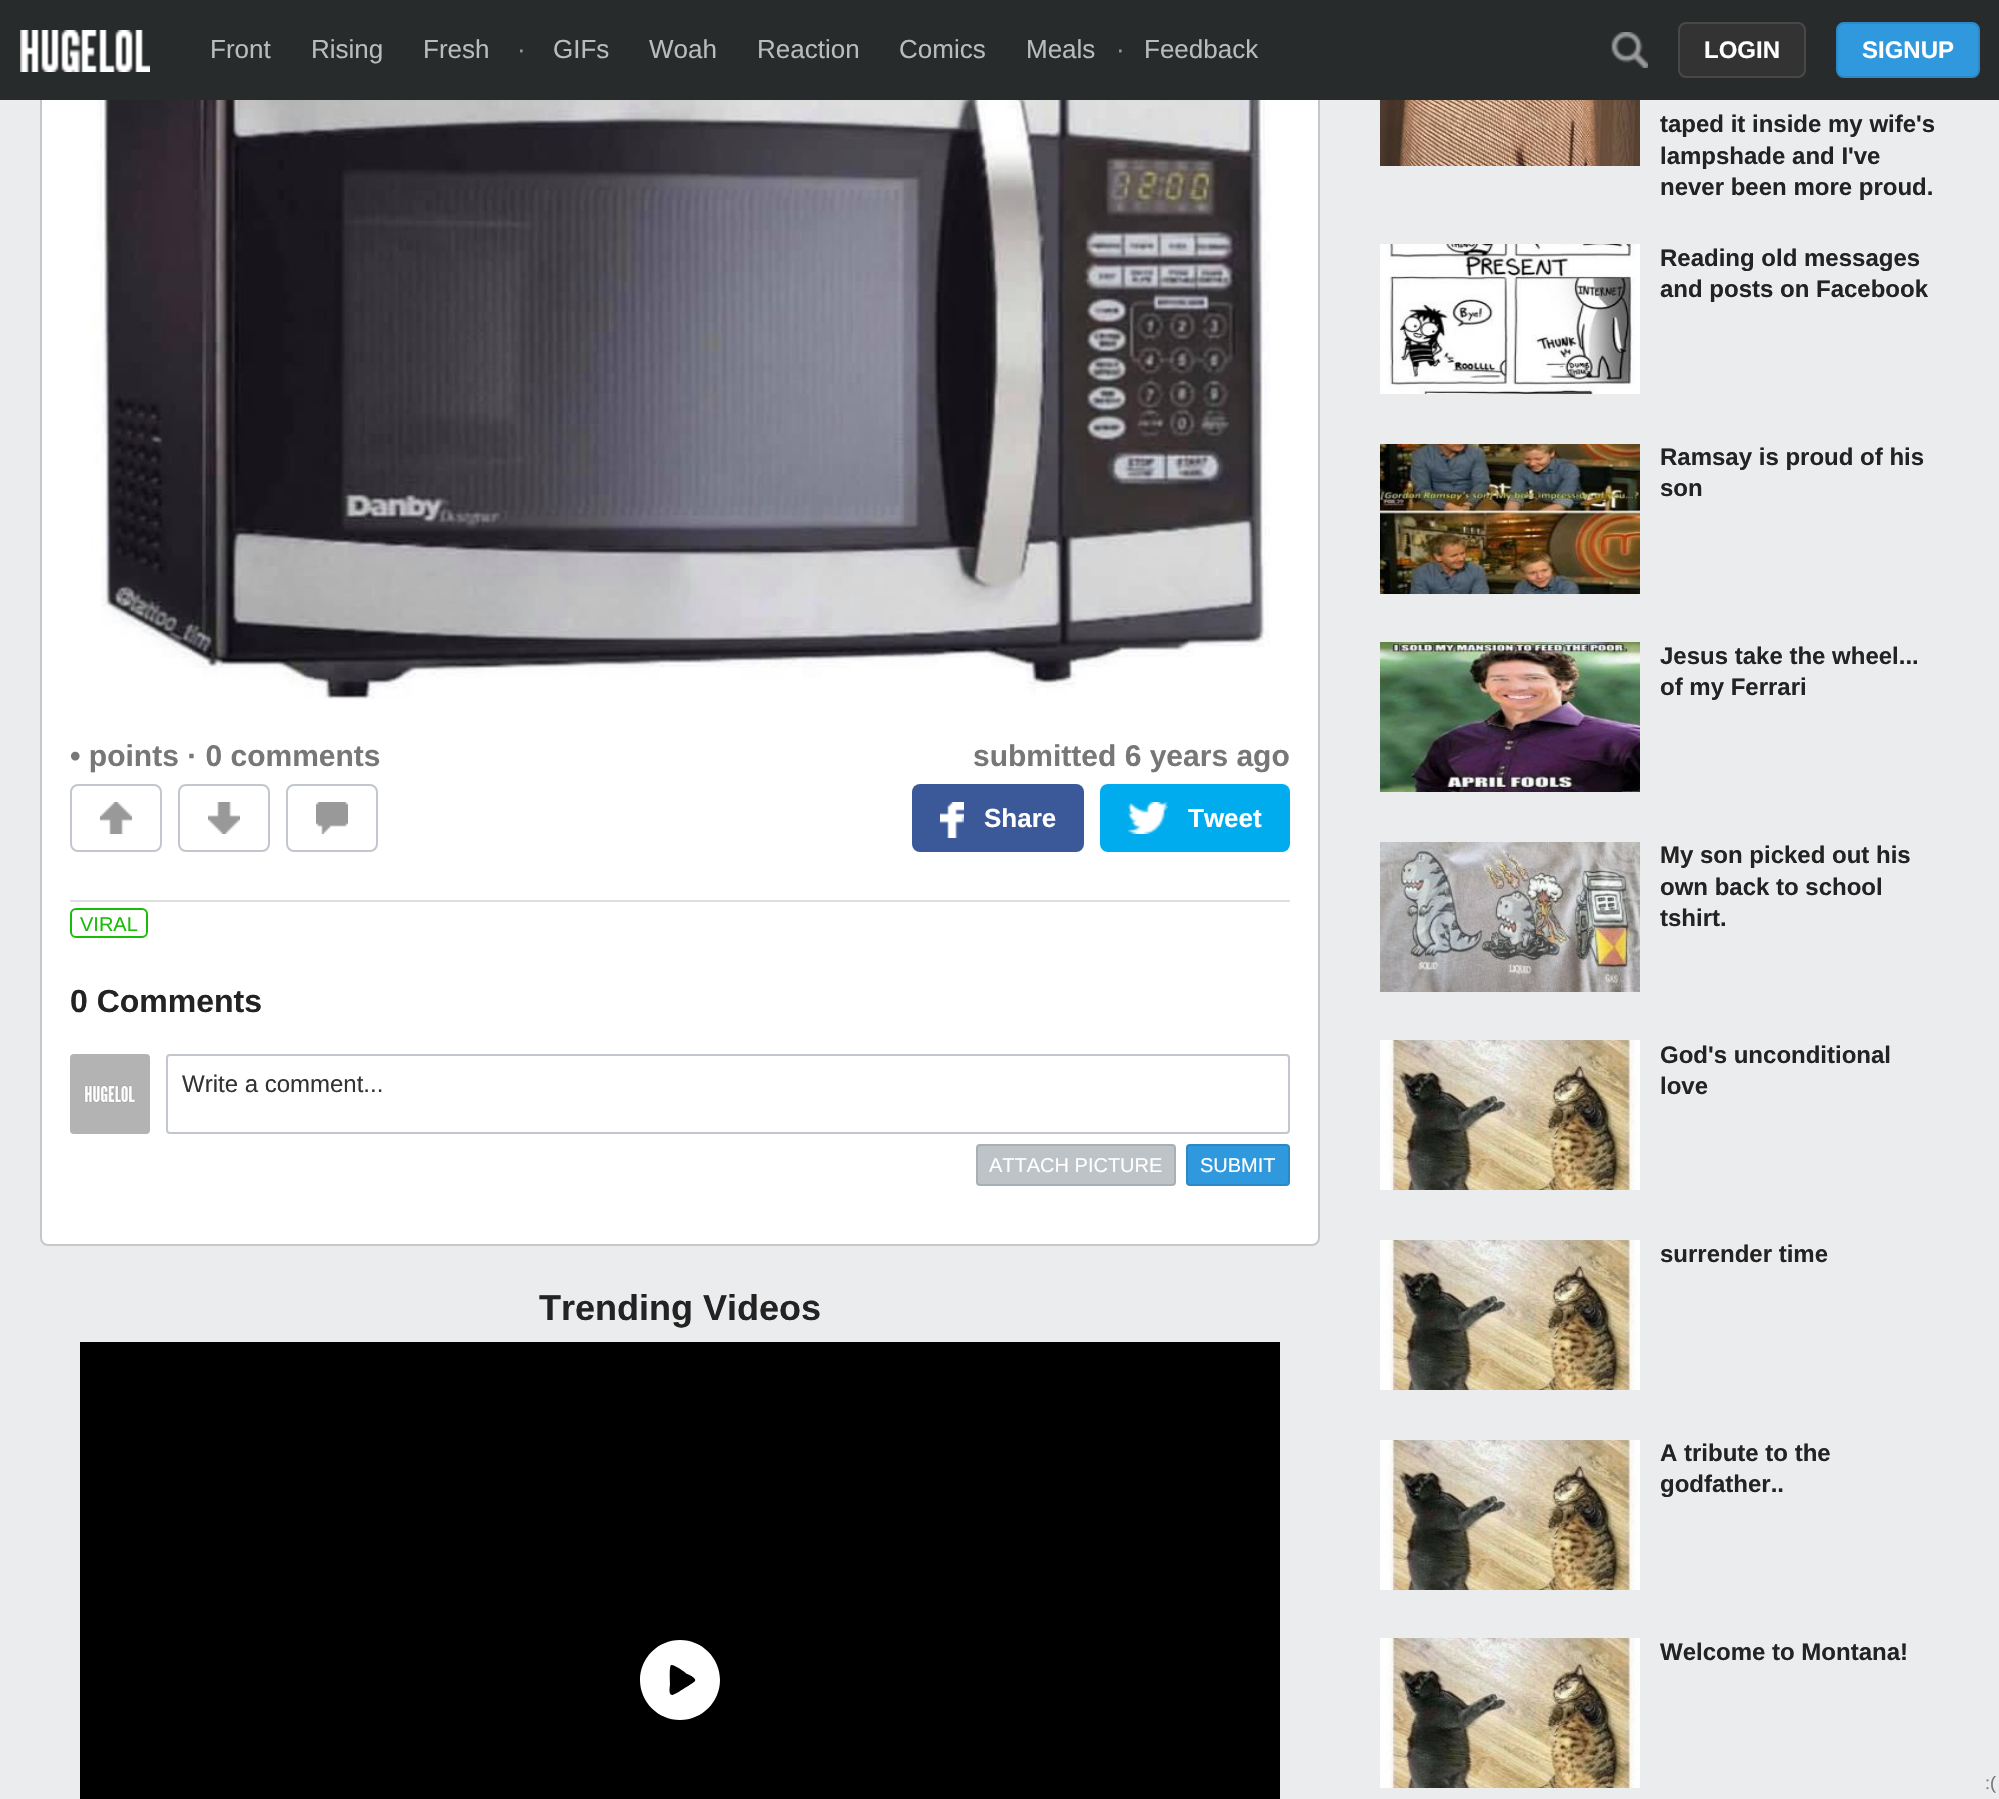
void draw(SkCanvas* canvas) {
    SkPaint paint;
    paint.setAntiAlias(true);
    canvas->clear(0xFFEBECED);
    paint.setColor(0xFFFFFFFF);
    canvas->drawRoundRect(SkRect::MakeXYWH(41, -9, 1278, 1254), 7, 7, paint);
    paint.setStyle(SkPaint::kStroke_Style);
    paint.setStrokeWidth(2);
    paint.setColor(0xFFC5C8CB);
    canvas->drawRoundRect(SkRect::MakeXYWH(41, -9, 1278, 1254), 7, 7, paint);
    paint.setStyle(SkPaint::kFill_Style);
    paint.setColor(0xFF272B2B);
    canvas->drawRect(SkRect::MakeXYWH(0, 0, 1999, 100), paint);
    canvas->drawImageRect(SkImages::DeferredFromEncodedData(SkData::MakeFromFileName("img1.png")), SkRect::MakeXYWH(20, 30, 130, 42), SkSamplingOptions());
    SkFont font1(fontMgr->matchFamilyStyle("Liberation Sans", SkFontStyle::Normal()), 26);
    font1.setSubpixel(true);
    paint.setColor(0xFFBBBBBB);
    canvas->drawString("Front", 210, 58, font1, paint);
    canvas->drawString("Rising", 311, 58, font1, paint);
    canvas->drawString("Fresh", 423, 58, font1, paint);
    paint.setColor(0xFF999999);
    canvas->drawString("·", 517, 58, font1, paint);
    paint.setColor(0xFFBBBBBB);
    canvas->drawString("GIFs", 553, 58, font1, paint);
    canvas->drawString("Woah", 649, 58, font1, paint);
    canvas->drawString("Reaction", 757, 58, font1, paint);
    canvas->drawString("Comics", 899, 58, font1, paint);
    canvas->drawString("Meals", 1026, 58, font1, paint);
    paint.setColor(0xFF999999);
    canvas->drawString("·", 1116, 58, font1, paint);
    paint.setColor(0xFFBBBBBB);
    canvas->drawString("Feedback", 1144, 58, font1, paint);
    canvas->drawImageRect(SkImages::DeferredFromEncodedData(SkData::MakeFromFileName("img2.png")), SkRect::MakeXYWH(1611, 32, 37, 36), SkSamplingOptions());
    paint.setColor(0xFF333333);
    canvas->drawRoundRect(SkRect::MakeXYWH(1679, 23, 126, 54), 7, 7, paint);
    paint.setStyle(SkPaint::kStroke_Style);
    paint.setColor(0xFF484848);
    canvas->drawRoundRect(SkRect::MakeXYWH(1679, 23, 126, 54), 7, 7, paint);
    SkFont font2(fontMgr->matchFamilyStyle("Liberation Sans", SkFontStyle::Bold()), 24);
    font2.setSubpixel(true);
    paint.setStyle(SkPaint::kFill_Style);
    paint.setColor(0xFFFFFFFF);
    canvas->drawString("LOGIN", 1704, 58, font2, paint);
    paint.setColor(0xFF3098DC);
    canvas->drawRoundRect(SkRect::MakeXYWH(1837, 23, 142, 54), 7, 7, paint);
    paint.setStyle(SkPaint::kStroke_Style);
    paint.setColor(0xFF2B89C6);
    canvas->drawRoundRect(SkRect::MakeXYWH(1837, 23, 142, 54), 7, 7, paint);
    paint.setStyle(SkPaint::kFill_Style);
    paint.setColor(0xFFFFFFFF);
    canvas->drawString("SIGNUP", 1862, 58, font2, paint);
    canvas->drawImageRect(SkImages::DeferredFromEncodedData(SkData::MakeFromFileName("img3.png")), SkRect::MakeXYWH(91, 100, 1179, 599), SkSamplingOptions());
    SkFont font3(fontMgr->matchFamilyStyle("Liberation Sans", SkFontStyle::Bold()), 30);
    font3.setSubpixel(true);
    paint.setColor(0xFF777777);
    canvas->drawString("• points · 0 comments", 70, 766, font3, paint);
    canvas->drawString("submitted 6 years ago", 973, 766, font3, paint);
    paint.setStyle(SkPaint::kStroke_Style);
    paint.setColor(0xFFC2C7CD);
    canvas->drawRoundRect(SkRect::MakeXYWH(71, 785, 90, 66), 7, 7, paint);
    canvas->drawImageRect(SkImages::DeferredFromEncodedData(SkData::MakeFromFileName("img4.png")), SkRect::MakeXYWH(100, 802, 32, 32), SkSamplingOptions());
    canvas->drawRoundRect(SkRect::MakeXYWH(179, 785, 90, 66), 7, 7, paint);
    canvas->drawImageRect(SkImages::DeferredFromEncodedData(SkData::MakeFromFileName("img5.png")), SkRect::MakeXYWH(208, 802, 32, 32), SkSamplingOptions());
    canvas->drawRoundRect(SkRect::MakeXYWH(287, 785, 90, 66), 7, 7, paint);
    canvas->drawImageRect(SkImages::DeferredFromEncodedData(SkData::MakeFromFileName("img6.png")), SkRect::MakeXYWH(316, 802, 32, 32), SkSamplingOptions());
    paint.setStyle(SkPaint::kFill_Style);
    paint.setColor(0xFF3B5998);
    canvas->drawRoundRect(SkRect::MakeXYWH(912, 784, 172, 68), 8, 8, paint);
    canvas->drawImageRect(SkImages::DeferredFromEncodedData(SkData::MakeFromFileName("img7.png")), SkRect::MakeXYWH(940, 802, 24, 36), SkSamplingOptions());
    SkFont font4(fontMgr->matchFamilyStyle("Liberation Sans", SkFontStyle::Bold()), 26);
    font4.setSubpixel(true);
    paint.setColor(0xFFFFFFFF);
    canvas->drawString("Share", 984, 827, font4, paint);
    paint.setColor(0xFF00ACED);
    canvas->drawRoundRect(SkRect::MakeXYWH(1100, 784, 190, 68), 8, 8, paint);
    canvas->drawImageRect(SkImages::DeferredFromEncodedData(SkData::MakeFromFileName("img8.png")), SkRect::MakeXYWH(1128, 802, 40, 32), SkSamplingOptions());
    paint.setColor(0xFFFFFFFF);
    canvas->drawString("Tweet", 1188, 827, font4, paint);
    paint.setColor(0xFFDFDFDF);
    canvas->drawRect(SkRect::MakeXYWH(70, 900, 1220, 2), paint);
    paint.setStyle(SkPaint::kStroke_Style);
    paint.setColor(0xFF1BBC09);
    canvas->drawRoundRect(SkRect::MakeXYWH(71, 909, 76, 28), 5, 5, paint);
    SkFont font5(fontMgr->matchFamilyStyle("Liberation Sans", SkFontStyle::Normal()), 20);
    font5.setSubpixel(true);
    paint.setStyle(SkPaint::kFill_Style);
    canvas->drawString("VIRAL", 80, 931, font5, paint);
    SkFont font6(fontMgr->matchFamilyStyle("Liberation Sans", SkFontStyle::Bold()), 32);
    font6.setSubpixel(true);
    paint.setColor(0xFF232323);
    canvas->drawString("0 Comments", 70, 1012, font6, paint);
    canvas->drawImageRect(SkImages::DeferredFromEncodedData(SkData::MakeFromFileName("img9.png")), SkRect::MakeXYWH(70, 1054, 80, 80), SkSamplingOptions());
    paint.setStyle(SkPaint::kStroke_Style);
    paint.setColor(0xFFC2C7CD);
    canvas->drawRoundRect(SkRect::MakeXYWH(167, 1055, 1122, 78), 3, 3, paint);
    SkFont font7(fontMgr->matchFamilyStyle("Liberation Sans", SkFontStyle::Normal()), 24);
    font7.setSubpixel(true);
    paint.setStyle(SkPaint::kFill_Style);
    paint.setColor(0xFF333333);
    canvas->drawString("Write a comment...", 182, 1092, font7, paint);
    paint.setColor(0xFFBDC3C7);
    canvas->drawRoundRect(SkRect::MakeXYWH(977, 1145, 198, 40), 3, 3, paint);
    paint.setStyle(SkPaint::kStroke_Style);
    paint.setColor(0xFFA7B0B4);
    canvas->drawRoundRect(SkRect::MakeXYWH(977, 1145, 198, 40), 3, 3, paint);
    paint.setStyle(SkPaint::kFill_Style);
    paint.setColor(0xFFFFFFFF);
    canvas->drawString("ATTACH PICTURE", 989, 1172, font5, paint);
    paint.setColor(0xFF3098DC);
    canvas->drawRoundRect(SkRect::MakeXYWH(1187, 1145, 102, 40), 3, 3, paint);
    paint.setStyle(SkPaint::kStroke_Style);
    paint.setColor(0xFF2B89C6);
    canvas->drawRoundRect(SkRect::MakeXYWH(1187, 1145, 102, 40), 3, 3, paint);
    paint.setStyle(SkPaint::kFill_Style);
    paint.setColor(0xFFFFFFFF);
    canvas->drawString("SUBMIT", 1200, 1172, font5, paint);
    SkFont font8(fontMgr->matchFamilyStyle("Liberation Sans", SkFontStyle::Bold()), 36);
    font8.setSubpixel(true);
    paint.setColor(0xFF232323);
    canvas->drawString("Trending Videos", 539, 1320, font8, paint);
    paint.setColor(0xFF000000);
    canvas->drawRect(SkRect::MakeXYWH(80, 1342, 1200, 457), paint);
    paint.setColor(0xFFFFFFFF);
    canvas->drawPath(SkPathBuilder().moveTo(680, 1640).cubicTo(658, 1640, 640, 1658, 640, 1680).cubicTo(640, 1702, 658, 1720, 680, 1720).cubicTo(702, 1720, 720, 1702, 720, 1680).cubicTo(720, 1658, 702, 1640, 680, 1640).close().moveTo(694, 1682).cubicTo(691, 1684, 675, 1695, 672, 1695).cubicTo(668, 1695, 670, 1686, 670, 1684).cubicTo(670, 1681, 669, 1667, 671, 1665).cubicTo(674, 1664, 685, 1672, 687, 1674).cubicTo(688, 1674, 699, 1679, 694, 1682).close().detach(), paint);
    canvas->drawImageRect(SkImages::DeferredFromEncodedData(SkData::MakeFromFileName("img10.png")), SkRect::MakeXYWH(1380, 100, 260, 66), SkSamplingOptions());
    paint.setColor(0xFF232323);
    canvas->drawString("taped it inside my wife's", 1660, 132, font2, paint);
    canvas->drawString("lampshade and I've", 1660, 164, font2, paint);
    canvas->drawString("never been more proud.", 1660, 195, font2, paint);
    canvas->drawImageRect(SkImages::DeferredFromEncodedData(SkData::MakeFromFileName("img11.png")), SkRect::MakeXYWH(1380, 244, 260, 150), SkSamplingOptions());
    canvas->drawString("Reading old messages", 1660, 266, font2, paint);
    canvas->drawString("and posts on Facebook", 1660, 297, font2, paint);
    canvas->drawImageRect(SkImages::DeferredFromEncodedData(SkData::MakeFromFileName("img12.png")), SkRect::MakeXYWH(1380, 444, 260, 150), SkSamplingOptions());
    canvas->drawString("Ramsay is proud of his", 1660, 465, font2, paint);
    canvas->drawString("son", 1660, 496, font2, paint);
    canvas->drawImageRect(SkImages::DeferredFromEncodedData(SkData::MakeFromFileName("img13.png")), SkRect::MakeXYWH(1380, 642, 260, 150), SkSamplingOptions());
    canvas->drawString("Jesus take the wheel...", 1660, 664, font2, paint);
    canvas->drawString("of my Ferrari", 1660, 695, font2, paint);
    canvas->drawImageRect(SkImages::DeferredFromEncodedData(SkData::MakeFromFileName("img14.png")), SkRect::MakeXYWH(1380, 842, 260, 150), SkSamplingOptions());
    canvas->drawString("My son picked out his", 1660, 863, font2, paint);
    canvas->drawString("own back to school", 1660, 895, font2, paint);
    canvas->drawString("tshirt.", 1660, 926, font2, paint);
    canvas->drawImageRect(SkImages::DeferredFromEncodedData(SkData::MakeFromFileName("img15.png")), SkRect::MakeXYWH(1380, 1040, 260, 150), SkSamplingOptions());
    canvas->drawString("God's unconditional", 1660, 1063, font2, paint);
    canvas->drawString("love", 1660, 1094, font2, paint);
    canvas->drawImageRect(SkImages::DeferredFromEncodedData(SkData::MakeFromFileName("img15.png")), SkRect::MakeXYWH(1380, 1240, 260, 150), SkSamplingOptions());
    canvas->drawString("surrender time", 1660, 1262, font2, paint);
    canvas->drawImageRect(SkImages::DeferredFromEncodedData(SkData::MakeFromFileName("img15.png")), SkRect::MakeXYWH(1380, 1440, 260, 150), SkSamplingOptions());
    canvas->drawString("A tribute to the", 1660, 1461, font2, paint);
    canvas->drawString("godfather..", 1660, 1492, font2, paint);
    canvas->drawImageRect(SkImages::DeferredFromEncodedData(SkData::MakeFromFileName("img15.png")), SkRect::MakeXYWH(1380, 1638, 260, 150), SkSamplingOptions());
    canvas->drawString("Welcome to Montana!", 1660, 1660, font2, paint);
    SkFont font9(fontMgr->matchFamilyStyle("Liberation Sans", SkFontStyle::Normal()), 18);
    font9.setSubpixel(true);
    paint.setColor(0xFF777777);
    canvas->drawString(":(", 1985, 1789, font9, paint);
}
